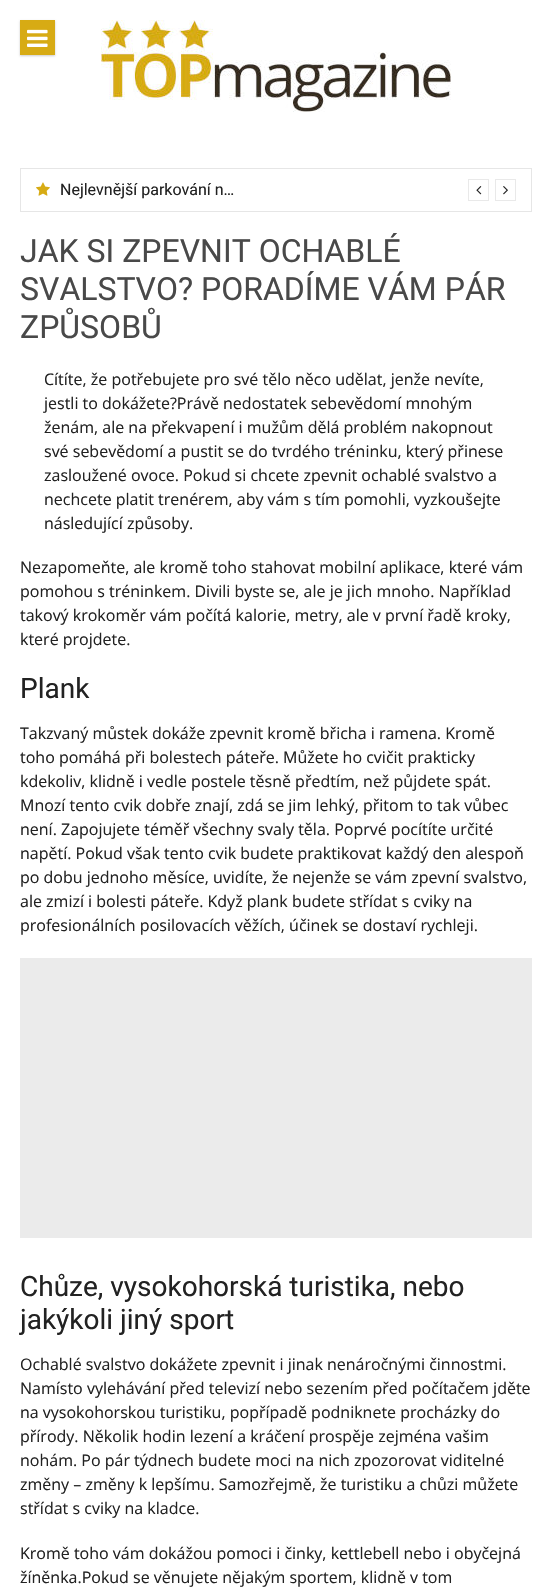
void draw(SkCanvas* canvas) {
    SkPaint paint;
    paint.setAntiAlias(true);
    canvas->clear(0xFFFFFFFF);
    paint.setColor(0x33000000);
    paint.setMaskFilter(SkMaskFilter::MakeBlur(kNormal_SkBlurStyle, 1));
    canvas->drawRect(SkRect::MakeXYWH(20, 21, 35, 35), paint);
    paint.setMaskFilter(nullptr);
    paint.setColor(0xFFD7AB14);
    canvas->drawRect(SkRect::MakeXYWH(20, 20, 35, 35), paint);
    canvas->drawImageRect(SkImages::DeferredFromEncodedData(SkData::MakeFromFileName("img1.png")), SkRect::MakeXYWH(27, 29, 21, 18), SkSamplingOptions());
    canvas->drawImageRect(SkImages::DeferredFromEncodedData(SkData::MakeFromFileName("img2.png")), SkRect::MakeXYWH(101, 20, 350, 92), SkSamplingOptions());
    paint.setStyle(SkPaint::kStroke_Style);
    paint.setStrokeWidth(1);
    paint.setColor(0xFFE6E6E6);
    canvas->drawRect(SkRect::MakeXYWH(20.5f, 168.5f, 511, 43), paint);
    canvas->drawImageRect(SkImages::DeferredFromEncodedData(SkData::MakeFromFileName("img3.png")), SkRect::MakeXYWH(36, 182, 14, 14), SkSamplingOptions());
    SkFont font1(fontMgr->matchFamilyStyle("Roboto", SkFontStyle::Normal()), 16);
    font1.setSubpixel(true);
    paint.setStyle(SkPaint::kFill_Style);
    paint.setColor(0xFF222222);
    canvas->drawString("Nejlevnější parkování n…", 60, 195, font1, paint);
    paint.setStyle(SkPaint::kStroke_Style);
    paint.setColor(0xFFE9E9E9);
    canvas->drawRect(SkRect::MakeXYWH(468.5f, 179.5f, 20, 21), paint);
    canvas->drawImageRect(SkImages::DeferredFromEncodedData(SkData::MakeFromFileName("img4.png")), SkRect::MakeXYWH(476, 186, 6, 9), SkSamplingOptions());
    canvas->drawRect(SkRect::MakeXYWH(495.5f, 179.5f, 20, 21), paint);
    canvas->drawImageRect(SkImages::DeferredFromEncodedData(SkData::MakeFromFileName("img5.png")), SkRect::MakeXYWH(503, 186, 5, 9), SkSamplingOptions());
    SkFont font2(fontMgr->matchFamilyStyle("Roboto", SkFontStyle::Normal()), 32);
    font2.setSubpixel(true);
    paint.setStyle(SkPaint::kFill_Style);
    paint.setColor(0xFF494949);
    canvas->drawString("JAK SI ZPEVNIT OCHABLÉ", 20, 262, font2, paint);
    canvas->drawString("SVALSTVO? PORADÍME VÁM PÁR", 20, 300, font2, paint);
    canvas->drawString("ZPŮSOBŮ", 20, 338, font2, paint);
    SkFont font3(fontMgr->matchFamilyStyle("Open Sans", SkFontStyle::Normal()), 16);
    font3.setSubpixel(true);
    paint.setColor(0xFF222222);
    canvas->drawString("Cítíte, že potřebujete pro své tělo něco udělat, jenže nevíte,", 44, 385, font3, paint);
    canvas->drawString("jestli to dokážete?Právě nedostatek sebevědomí mnohým", 44, 409, font3, paint);
    canvas->drawString("ženám, ale na překvapení i mužům dělá problém nakopnout", 44, 433, font3, paint);
    canvas->drawString("své sebevědomí a pustit se do tvrdého tréninku, který přinese", 44, 457, font3, paint);
    canvas->drawString("zasloužené ovoce. Pokud si chcete zpevnit ochablé svalstvo a", 44, 481, font3, paint);
    canvas->drawString("nechcete platit trenérem, aby vám s tím pomohli, vyzkoušejte", 44, 505, font3, paint);
    canvas->drawString("následující způsoby.", 44, 529, font3, paint);
    canvas->drawString("Nezapomeňte, ale kromě toho stahovat mobilní aplikace, které vám", 20, 573, font3, paint);
    canvas->drawString("pomohou s tréninkem. Divili byste se, ale je jich mnoho. Například", 20, 597, font3, paint);
    canvas->drawString("takový krokoměr vám počítá kalorie, metry, ale v první řadě kroky,", 20, 621, font3, paint);
    canvas->drawString("které projdete.", 20, 645, font3, paint);
    SkFont font4(fontMgr->matchFamilyStyle("Roboto", SkFontStyle::Normal()), 28);
    font4.setSubpixel(true);
    canvas->drawString("Plank", 20, 698, font4, paint);
    canvas->drawString("Takzvaný můstek dokáže zpevnit kromě břicha i ramena. Kromě", 20, 739, font3, paint);
    canvas->drawString("toho pomáhá při bolestech páteře. Můžete ho cvičit prakticky", 20, 763, font3, paint);
    canvas->drawString("kdekoliv, klidně i vedle postele těsně předtím, než půjdete spát.", 20, 787, font3, paint);
    canvas->drawString("Mnozí tento cvik dobře znají, zdá se jim lehký, přitom to tak vůbec", 20, 811, font3, paint);
    canvas->drawString("není. Zapojujete téměř všechny svaly těla. Poprvé pocítíte určité", 20, 835, font3, paint);
    canvas->drawString("napětí. Pokud však tento cvik budete praktikovat každý den alespoň", 20, 859, font3, paint);
    canvas->drawString("po dobu jednoho měsíce, uvidíte, že nejenže se vám zpevní svalstvo,", 20, 883, font3, paint);
    canvas->drawString("ale zmizí i bolesti páteře. Když plank budete střídat s cviky na", 20, 907, font3, paint);
    canvas->drawString("profesionálních posilovacích věžích, účinek se dostaví rychleji.", 20, 931, font3, paint);
    paint.setColor(0xFFEBEBEB);
    canvas->drawRect(SkRect::MakeXYWH(20, 958, 512, 280), paint);
    paint.setColor(0xFF222222);
    canvas->drawString("Chůze, vysokohorská turistika, nebo", 20, 1296, font4, paint);
    canvas->drawString("jakýkoli jiný sport", 20, 1329, font4, paint);
    canvas->drawString("Ochablé svalstvo dokážete zpevnit i jinak nenáročnými činnostmi.", 20, 1370, font3, paint);
    canvas->drawString("Namísto vylehávání před televizí nebo sezením před počítačem jděte", 20, 1394, font3, paint);
    canvas->drawString("na vysokohorskou turistiku, popřípadě podniknete procházky do", 20, 1418, font3, paint);
    canvas->drawString("přírody. Několik hodin lezení a kráčení prospěje zejména vašim", 20, 1442, font3, paint);
    canvas->drawString("nohám. Po pár týdnech budete moci na nich zpozorovat viditelné", 20, 1466, font3, paint);
    canvas->drawString("změny – změny k lepšímu. Samozřejmě, že turistiku a chůzi můžete", 20, 1490, font3, paint);
    canvas->drawString("střídat s cviky na kladce.", 20, 1514, font3, paint);
    canvas->drawString("Kromě toho vám dokážou pomoci i činky, kettlebell nebo i obyčejná", 20, 1559, font3, paint);
    canvas->drawString("žíněnka.Pokud se věnujete nějakým sportem, klidně v tom", 20, 1583, font3, paint);
}
